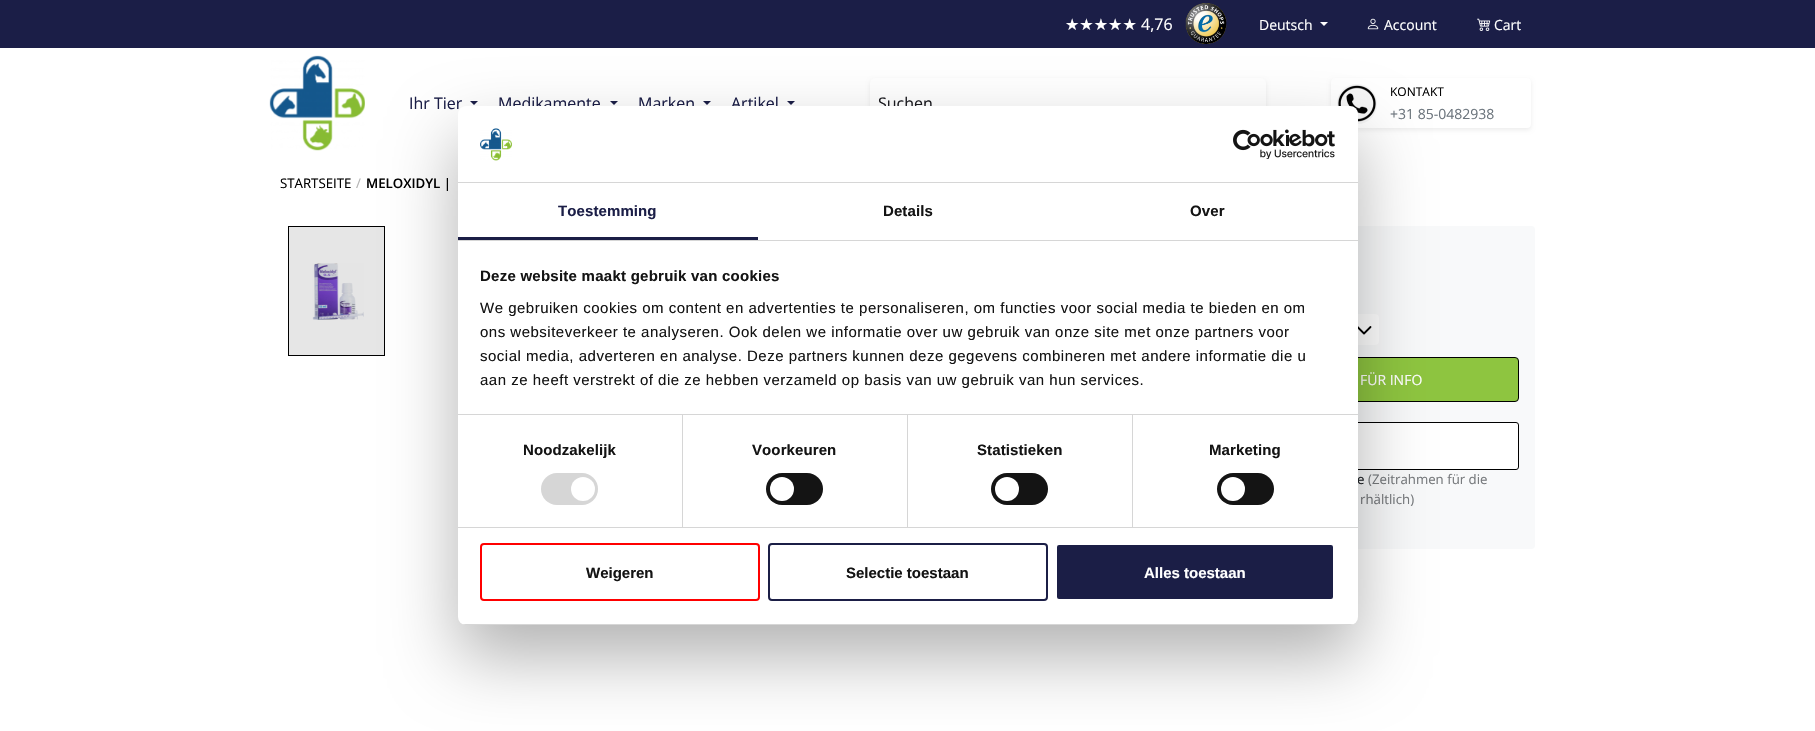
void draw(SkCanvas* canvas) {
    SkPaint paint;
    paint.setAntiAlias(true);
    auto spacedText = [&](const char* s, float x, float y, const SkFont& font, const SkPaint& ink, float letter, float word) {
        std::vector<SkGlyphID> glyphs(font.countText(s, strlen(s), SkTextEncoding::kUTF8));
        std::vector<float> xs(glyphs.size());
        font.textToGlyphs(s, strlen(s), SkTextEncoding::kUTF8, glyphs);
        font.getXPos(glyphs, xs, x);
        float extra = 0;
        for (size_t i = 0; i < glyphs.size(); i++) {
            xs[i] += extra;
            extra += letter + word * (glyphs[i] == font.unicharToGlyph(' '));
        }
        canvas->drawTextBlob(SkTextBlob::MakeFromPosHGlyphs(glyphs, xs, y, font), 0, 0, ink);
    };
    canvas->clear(0xFFFFFFFF);
    paint.setColor(0xFFE6E6E6);
    canvas->drawRect(SkRect::MakeXYWH(289, 227, 95, 128), paint);
    paint.setColor(0xFF1B1E47);
    canvas->drawRect(SkRect::MakeXYWH(0, 0, 1815, 48), paint);
    SkFont font1(fontMgr->matchFamilyStyle("DejaVu Sans", SkFontStyle::Normal()), 16);
    font1.setSubpixel(true);
    paint.setColor(0xFFFFFFFF);
    canvas->drawString("★★★★★", 1065, 30, font1, paint);
    SkFont font2(fontMgr->matchFamilyStyle("Open Sans", SkFontStyle::Normal()), 16);
    font2.setSubpixel(true);
    canvas->drawString("4,76", 1141, 30, font2, paint);
    canvas->drawImageRect(SkImages::DeferredFromEncodedData(SkData::MakeFromFileName("img1.png")), SkRect::MakeXYWH(1185, 3, 42, 41), SkSamplingOptions());
    SkFont font3(fontMgr->matchFamilyStyle("Open Sans", SkFontStyle::Normal()), 14);
    font3.setSubpixel(true);
    canvas->drawString("Deutsch", 1259, 30, font3, paint);
    canvas->drawPath(SkPathBuilder().moveTo(1320, 22).lineTo(1328, 22).lineTo(1324, 26).close().detach(), paint);
    canvas->drawImageRect(SkImages::DeferredFromEncodedData(SkData::MakeFromFileName("img2.png")), SkRect::MakeXYWH(1367, 18, 12, 12), SkSamplingOptions());
    canvas->drawString("Account", 1384, 30, font3, paint);
    canvas->drawImageRect(SkImages::DeferredFromEncodedData(SkData::MakeFromFileName("img3.png")), SkRect::MakeXYWH(1477, 18, 14, 13), SkSamplingOptions());
    canvas->drawString("Cart", 1494, 30, font3, paint);
    canvas->drawImageRect(SkImages::DeferredFromEncodedData(SkData::MakeFromFileName("img4.png")), SkRect::MakeXYWH(269, 55, 96, 96), SkSamplingOptions());
    paint.setColor(0xFF1B1E47);
    canvas->drawString("Ihr Tier", 409, 109, font2, paint);
    canvas->drawPath(SkPathBuilder().moveTo(470, 101).lineTo(478, 101).lineTo(474, 105).close().detach(), paint);
    canvas->drawString("Medikamente", 498, 109, font2, paint);
    canvas->drawPath(SkPathBuilder().moveTo(610, 101).lineTo(618, 101).lineTo(614, 105).close().detach(), paint);
    canvas->drawString("Marken", 638, 109, font2, paint);
    canvas->drawPath(SkPathBuilder().moveTo(703, 101).lineTo(711, 101).lineTo(707, 105).close().detach(), paint);
    canvas->drawString("Artikel", 731, 109, font2, paint);
    canvas->drawPath(SkPathBuilder().moveTo(787, 101).lineTo(795, 101).lineTo(791, 105).close().detach(), paint);
    paint.setColor(0x12000000);
    paint.setMaskFilter(SkMaskFilter::MakeBlur(kNormal_SkBlurStyle, 2));
    canvas->drawRoundRect(SkRect::MakeXYWH(870, 80, 396, 50), 5, 5, paint);
    paint.setMaskFilter(nullptr);
    paint.setColor(0xFFFFFFFF);
    canvas->drawRoundRect(SkRect::MakeXYWH(870, 78, 396, 50), 5, 5, paint);
    paint.setColor(0xFF1C1C21);
    canvas->drawString("Suchen", 878, 109, font2, paint);
    paint.setColor(0x12000000);
    paint.setMaskFilter(SkMaskFilter::MakeBlur(kNormal_SkBlurStyle, 2));
    canvas->drawRoundRect(SkRect::MakeXYWH(1331, 80, 200, 50), 4, 4, paint);
    paint.setMaskFilter(nullptr);
    paint.setColor(0xFFFFFFFF);
    canvas->drawRoundRect(SkRect::MakeXYWH(1331, 78, 200, 50), 4, 4, paint);
    paint.setColor(0xFFF8F9FA);
    canvas->drawCircle(1357, 104, 20, paint);
    canvas->drawImageRect(SkImages::DeferredFromEncodedData(SkData::MakeFromFileName("img5.png")), SkRect::MakeXYWH(1337, 84, 40, 40), SkSamplingOptions());
    SkFont font4(fontMgr->matchFamilyStyle("Open Sans", SkFontStyle::Normal()), 12);
    font4.setSubpixel(true);
    paint.setColor(0xFF000000);
    canvas->drawString("KONTAKT", 1390, 96, font4, paint);
    paint.setColor(0xFF6C757D);
    canvas->drawString("+31 85-0482938", 1390, 119, font3, paint);
    SkFont font5(fontMgr->matchFamilyStyle("Open Sans", SkFontStyle::Normal()), 13.25f);
    font5.setSubpixel(true);
    paint.setColor(0xFF000000);
    canvas->drawString("STARTSEITE", 280, 188, font5, paint);
    paint.setColor(0xFFB3B3B3);
    canvas->drawString("/", 356, 188, font5, paint);
    SkFont font6(fontMgr->matchFamilyStyle("Open Sans", SkFontStyle(600, SkFontStyle::kNormal_Width, SkFontStyle::kUpright_Slant)), 13.25f);
    font6.setSubpixel(true);
    paint.setColor(0xFF000000);
    canvas->drawString("MELOXIDYL |", 366, 188, font6, paint);
    canvas->drawImageRect(SkImages::DeferredFromEncodedData(SkData::MakeFromFileName("img6.png")), SkRect::MakeXYWH(312, 263, 52, 57), SkSamplingOptions());
    paint.setStyle(SkPaint::kStroke_Style);
    paint.setStrokeWidth(1);
    canvas->drawRect(SkRect::MakeXYWH(288.5f, 226.5f, 96, 129), paint);
    paint.setStyle(SkPaint::kFill_Style);
    paint.setColor(0xFFF8F9FA);
    canvas->drawRoundRect(SkRect::MakeXYWH(1130, 226, 405, 323), 4, 4, paint);
    paint.setColor(0xFFFFFFFF);
    canvas->drawRoundRect(SkRect::MakeXYWH(1146, 314, 233, 31), 4, 4, paint);
    paint.setStyle(SkPaint::kStroke_Style);
    paint.setStrokeWidth(1.8f);
    paint.setStrokeCap(SkPaint::kRound_Cap);
    paint.setStrokeJoin(SkPaint::kRound_Join);
    paint.setColor(0xFF000000);
    canvas->drawPath(SkPathBuilder().moveTo(1370.5f, 327).lineTo(1364, 333.5f).lineTo(1357.5f, 327).detach(), paint);
    paint.setStyle(SkPaint::kFill_Style);
    paint.setColor(0xFF8EC540);
    canvas->drawRoundRect(SkRect::MakeXYWH(1146.5f, 357.5f, 372, 44), 3.5f, 3.5f, paint);
    paint.setStyle(SkPaint::kStroke_Style);
    paint.setStrokeWidth(1);
    paint.setStrokeCap(SkPaint::kButt_Cap);
    paint.setStrokeJoin(SkPaint::kMiter_Join);
    paint.setColor(0xFF000000);
    canvas->drawRoundRect(SkRect::MakeXYWH(1146.5f, 357.5f, 372, 44), 3.5f, 3.5f, paint);
    paint.setStyle(SkPaint::kFill_Style);
    paint.setColor(0xFFFFFFFF);
    canvas->drawString("FÜR INFO", 1360, 385, font3, paint);
    canvas->drawRoundRect(SkRect::MakeXYWH(1146.5f, 422.5f, 372, 47), 2.5f, 2.5f, paint);
    paint.setStyle(SkPaint::kStroke_Style);
    paint.setColor(0xFF000000);
    canvas->drawRoundRect(SkRect::MakeXYWH(1146.5f, 422.5f, 372, 47), 2.5f, 2.5f, paint);
    paint.setStyle(SkPaint::kFill_Style);
    paint.setColor(0xFF212529);
    canvas->drawString("e", 1357, 484, font5, paint);
    paint.setColor(0xFF777A7D);
    canvas->drawString("(Zeitrahmen für die", 1368, 484, font5, paint);
    canvas->drawString("rhältlich)", 1360, 504, font5, paint);
    paint.setColor(0x4D000000);
    paint.setMaskFilter(SkMaskFilter::MakeBlur(kNormal_SkBlurStyle, 34));
    canvas->drawRoundRect(SkRect::MakeXYWH(458, 138, 900, 519), 8, 8, paint);
    paint.setMaskFilter(nullptr);
    paint.setColor(0xFFFFFFFF);
    canvas->drawRoundRect(SkRect::MakeXYWH(458, 106, 900, 519), 8, 8, paint);
    paint.setColor(0xFFD6D6D6);
    canvas->drawRect(SkRect::MakeXYWH(458, 182, 900, 1), paint);
    canvas->drawImageRect(SkImages::DeferredFromEncodedData(SkData::MakeFromFileName("img7.png")), SkRect::MakeXYWH(480, 128, 32, 33), SkSamplingOptions());
    canvas->drawImageRect(SkImages::DeferredFromEncodedData(SkData::MakeFromFileName("img8.png")), SkRect::MakeXYWH(1233, 129, 102, 30), SkSamplingOptions());
    canvas->drawRect(SkRect::MakeXYWH(458, 240, 900, 1), paint);
    paint.setColor(0xFF1B1E46);
    canvas->drawRect(SkRect::MakeXYWH(458, 237, 300, 3), paint);
    SkFont font7(fontMgr->matchFamilyStyle("Liberation Sans", SkFontStyle::Bold()), 15);
    font7.setSubpixel(true);
    paint.setColor(0xFF1B1E47);
    spacedText("Toestemming", 558, 216, font7, paint, 0.1f, 0);
    paint.setColor(0xFF141414);
    spacedText("Details", 883, 216, font7, paint, 0.1f, 0);
    spacedText("Over", 1190, 216, font7, paint, 0.1f, 0);
    paint.setColor(0xFFD6D6D6);
    canvas->drawRect(SkRect::MakeXYWH(458, 414, 900, 1), paint);
    paint.setColor(0xFF141414);
    spacedText("Deze website maakt gebruik van cookies", 480, 281, font7, paint, 0.25f, 0);
    SkFont font8(fontMgr->matchFamilyStyle("Liberation Sans", SkFontStyle::Normal()), 15);
    font8.setSubpixel(true);
    spacedText("We gebruiken cookies om content en advertenties te personaliseren, om functies voor social media te bieden en om", 480, 313, font8, paint, 0.5f, 0);
    spacedText("ons websiteverkeer te analyseren. Ook delen we informatie over uw gebruik van onze site met onze partners voor", 480, 337, font8, paint, 0.5f, 0);
    spacedText("social media, adverteren en analyse. Deze partners kunnen deze gegevens combineren met andere informatie die u", 480, 361, font8, paint, 0.5f, 0);
    spacedText("aan ze heeft verstrekt of die ze hebben verzameld op basis van uw gebruik van hun services.", 480, 385, font8, paint, 0.5f, 0);
    paint.setColor(0xFFD6D6D6);
    canvas->drawRect(SkRect::MakeXYWH(458, 527, 900, 1), paint);
    canvas->drawRect(SkRect::MakeXYWH(682, 415, 1, 112), paint);
    paint.setColor(0xFF141414);
    spacedText("Noodzakelijk", 523, 455, font7, paint, 0.1f, 0);
    paint.setColor(0xFFD6D6D6);
    canvas->drawRoundRect(SkRect::MakeXYWH(541, 473, 57, 32), 16, 16, paint);
    paint.setColor(0xFFFFFFFF);
    canvas->drawCircle(583, 489, 12, paint);
    paint.setColor(0xFFD6D6D6);
    canvas->drawRect(SkRect::MakeXYWH(907, 415, 1, 112), paint);
    paint.setColor(0xFF141414);
    spacedText("Voorkeuren", 752, 455, font7, paint, 0.1f, 0);
    canvas->drawRoundRect(SkRect::MakeXYWH(766, 473, 57, 32), 16, 16, paint);
    paint.setColor(0xFFFFFFFF);
    canvas->drawCircle(782, 489, 12, paint);
    paint.setColor(0xFFD6D6D6);
    canvas->drawRect(SkRect::MakeXYWH(1132, 415, 1, 112), paint);
    paint.setColor(0xFF141414);
    spacedText("Statistieken", 977, 455, font7, paint, 0.1f, 0);
    canvas->drawRoundRect(SkRect::MakeXYWH(991, 473, 57, 32), 16, 16, paint);
    paint.setColor(0xFFFFFFFF);
    canvas->drawCircle(1007, 489, 12, paint);
    paint.setColor(0xFF141414);
    spacedText("Marketing", 1209, 455, font7, paint, 0.1f, 0);
    canvas->drawRoundRect(SkRect::MakeXYWH(1217, 473, 57, 32), 16, 16, paint);
    paint.setColor(0xFFFFFFFF);
    canvas->drawCircle(1233, 489, 12, paint);
    canvas->save();
    canvas->clipPath(SkPathBuilder().moveTo(466, 106).lineTo(1350, 106).cubicTo(1354.5f, 106, 1358, 109.5f, 1358, 114).lineTo(1358, 617).cubicTo(1358, 621.5f, 1354.5f, 625, 1350, 625).lineTo(466, 625).cubicTo(461.5f, 625, 458, 621.5f, 458, 617).lineTo(458, 114).cubicTo(458, 109.5f, 461.5f, 106, 466, 106).close().detach(), true);
    paint.setColor(0xFFD6D6D6);
    canvas->drawRect(SkRect::MakeXYWH(458, 624, 900, 1), paint);
    canvas->restore();
    paint.setStyle(SkPaint::kStroke_Style);
    paint.setStrokeWidth(2);
    paint.setColor(0xFFFF0000);
    canvas->drawRoundRect(SkRect::MakeXYWH(481, 544, 278, 56), 3, 3, paint);
    paint.setStyle(SkPaint::kFill_Style);
    paint.setColor(0xFF141414);
    canvas->drawString("Weigeren", 586, 578, font7, paint);
    paint.setStyle(SkPaint::kStroke_Style);
    paint.setColor(0xFF1B1E46);
    canvas->drawRoundRect(SkRect::MakeXYWH(769, 544, 278, 56), 3, 3, paint);
    paint.setStyle(SkPaint::kFill_Style);
    paint.setColor(0xFF141414);
    canvas->drawString("Selectie toestaan", 846, 578, font7, paint);
    paint.setColor(0xFF1B1E46);
    canvas->drawRoundRect(SkRect::MakeXYWH(1056, 544, 278, 56), 3, 3, paint);
    paint.setStyle(SkPaint::kStroke_Style);
    paint.setColor(0xFFFFFFFF);
    canvas->drawRoundRect(SkRect::MakeXYWH(1056, 544, 278, 56), 3, 3, paint);
    paint.setStyle(SkPaint::kFill_Style);
    canvas->drawString("Alles toestaan", 1144, 578, font7, paint);
}
